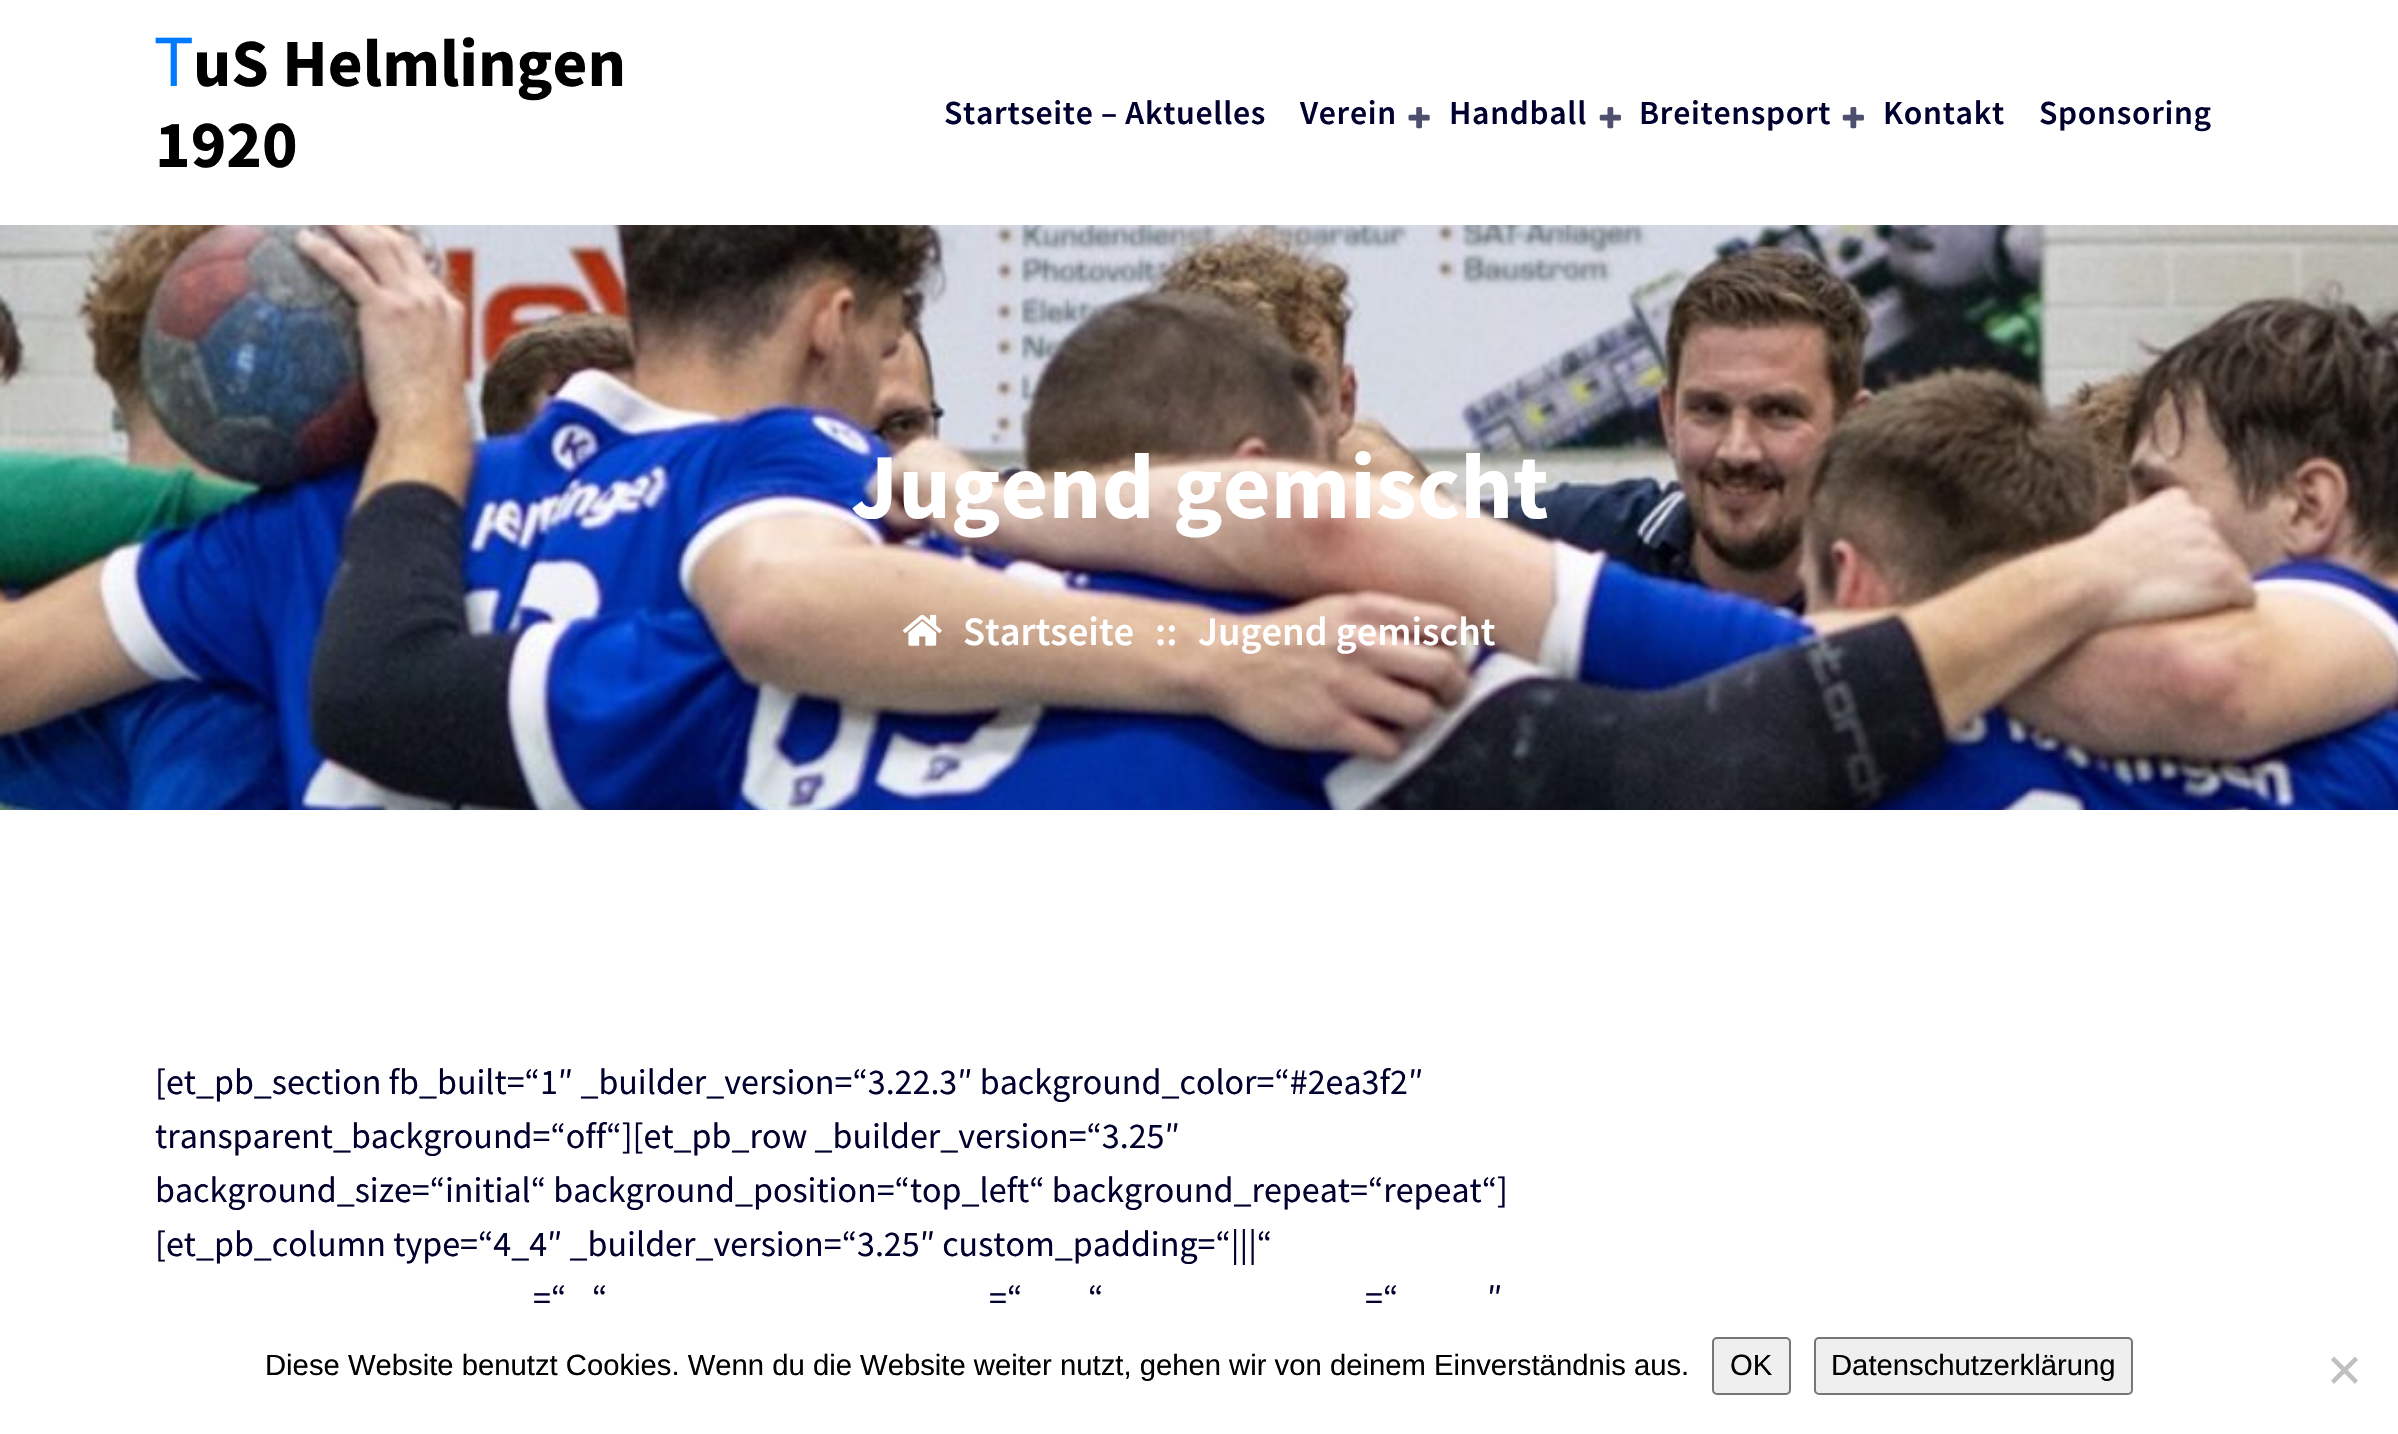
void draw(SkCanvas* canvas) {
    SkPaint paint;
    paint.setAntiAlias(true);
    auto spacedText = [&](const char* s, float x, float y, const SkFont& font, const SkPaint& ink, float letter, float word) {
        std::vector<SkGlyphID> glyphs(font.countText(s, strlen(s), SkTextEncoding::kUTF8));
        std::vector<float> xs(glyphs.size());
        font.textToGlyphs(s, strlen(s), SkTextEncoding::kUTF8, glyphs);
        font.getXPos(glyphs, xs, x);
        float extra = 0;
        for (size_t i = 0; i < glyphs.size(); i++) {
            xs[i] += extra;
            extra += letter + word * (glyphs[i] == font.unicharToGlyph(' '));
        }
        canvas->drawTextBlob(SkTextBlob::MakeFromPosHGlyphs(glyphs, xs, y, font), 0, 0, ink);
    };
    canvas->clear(0xFFFFFFFF);
    SkFont font1(fontMgr->matchFamilyStyle("Noto Sans", SkFontStyle::Normal()), 67.5f);
    font1.setSubpixel(true);
    paint.setColor(0xFF007BFF);
    canvas->drawString("T", 155, 86, font1, paint);
    SkFont font2(fontMgr->matchFamilyStyle("Source Sans Pro", SkFontStyle::Bold()), 67.5f);
    font2.setSubpixel(true);
    paint.setColor(0xFF000000);
    canvas->drawString("uS Helmlingen", 193, 86, font2, paint);
    canvas->drawString("1920", 155, 167, font2, paint);
    SkFont font3(fontMgr->matchFamilyStyle("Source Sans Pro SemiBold", SkFontStyle(600, SkFontStyle::kNormal_Width, SkFontStyle::kUpright_Slant)), 33.75f);
    font3.setSubpixel(true);
    paint.setColor(0xFF01012F);
    spacedText("Startseite – Aktuelles", 944, 124, font3, paint, 0.7f, 0);
    spacedText("Verein", 1300, 124, font3, paint, 0.7f, 0);
    canvas->drawImageRect(SkImages::DeferredFromEncodedData(SkData::MakeFromFileName("img1.png")), SkRect::MakeXYWH(1408, 107, 22, 22), SkSamplingOptions());
    spacedText("Handball", 1449, 124, font3, paint, 0.7f, 0);
    canvas->drawImageRect(SkImages::DeferredFromEncodedData(SkData::MakeFromFileName("img2.png")), SkRect::MakeXYWH(1599, 107, 22, 22), SkSamplingOptions());
    spacedText("Breitensport", 1639, 124, font3, paint, 0.7f, 0);
    canvas->drawImageRect(SkImages::DeferredFromEncodedData(SkData::MakeFromFileName("img2.png")), SkRect::MakeXYWH(1842, 107, 22, 22), SkSamplingOptions());
    spacedText("Kontakt", 1883, 124, font3, paint, 0.7f, 0);
    spacedText("Sponsoring", 2039, 124, font3, paint, 0.7f, 0);
    canvas->drawImageRect(SkImages::DeferredFromEncodedData(SkData::MakeFromFileName("img3.png")), SkRect::MakeXYWH(0, 225, 2398, 585), SkSamplingOptions());
    SkFont font4(fontMgr->matchFamilyStyle("Source Sans Pro", SkFontStyle::Bold()), 92.75f);
    font4.setSubpixel(true);
    paint.setColor(0xFFFFFFFF);
    canvas->drawString("Jugend gemischt", 851, 518, font4, paint);
    canvas->drawImageRect(SkImages::DeferredFromEncodedData(SkData::MakeFromFileName("img4.png")), SkRect::MakeXYWH(902, 614, 40, 32), SkSamplingOptions());
    SkFont font5(fontMgr->matchFamilyStyle("Source Sans Pro SemiBold", SkFontStyle(600, SkFontStyle::kNormal_Width, SkFontStyle::kUpright_Slant)), 40.5f);
    font5.setSubpixel(true);
    canvas->drawString("Startseite", 963, 645, font5, paint);
    canvas->drawString("::", 1155, 645, font5, paint);
    canvas->drawString("Jugend gemischt", 1198, 645, font5, paint);
    SkFont font6(fontMgr->matchFamilyStyle("Source Sans Pro", SkFontStyle::Normal()), 36);
    font6.setSubpixel(true);
    paint.setColor(0xFF01012F);
    canvas->drawString("[et_pb_section fb_built=“1″ _builder_version=“3.22.3″ background_color=“#2ea3f2″", 155, 1094, font6, paint);
    canvas->drawString("transparent_background=“off“][et_pb_row _builder_version=“3.25″", 155, 1148, font6, paint);
    canvas->drawString("background_size=“initial“ background_position=“top_left“ background_repeat=“repeat“]", 155, 1202, font6, paint);
    canvas->drawString("[et_pb_column type=“4_4″ _builder_version=“3.25″ custom_padding=“|||“", 155, 1256, font6, paint);
    canvas->drawString("=“", 533, 1310, font6, paint);
    canvas->drawString("“", 592, 1310, font6, paint);
    canvas->drawString("=“", 989, 1310, font6, paint);
    canvas->drawString("“", 1088, 1310, font6, paint);
    canvas->drawString("=“", 1365, 1310, font6, paint);
    canvas->drawString("″", 1487, 1310, font6, paint);
    paint.setColor(0xFFFFFFFF);
    canvas->drawRect(SkRect::MakeXYWH(534, 1303, 848, 1), paint);
    SkFont font7(fontMgr->matchFamilyStyle("Liberation Sans", SkFontStyle::Normal()), 29.25f);
    font7.setSubpixel(true);
    paint.setColor(0xFF000000);
    canvas->drawString("Diese Website benutzt Cookies. Wenn du die Website weiter nutzt, gehen wir von deinem Einverständnis aus.", 265, 1375, font7, paint);
    paint.setColor(0xFFEFEFEF);
    canvas->drawRoundRect(SkRect::MakeXYWH(1713, 1338, 77, 56), 4, 4, paint);
    paint.setStyle(SkPaint::kStroke_Style);
    paint.setStrokeWidth(2);
    paint.setColor(0xFF767676);
    canvas->drawRoundRect(SkRect::MakeXYWH(1713, 1338, 77, 56), 4, 4, paint);
    paint.setStyle(SkPaint::kFill_Style);
    paint.setColor(0xFF000000);
    canvas->drawString("OK", 1730, 1375, font7, paint);
    paint.setColor(0xFFEFEFEF);
    canvas->drawRoundRect(SkRect::MakeXYWH(1815, 1338, 317, 56), 4, 4, paint);
    paint.setStyle(SkPaint::kStroke_Style);
    paint.setColor(0xFF767676);
    canvas->drawRoundRect(SkRect::MakeXYWH(1815, 1338, 317, 56), 4, 4, paint);
    paint.setStyle(SkPaint::kFill_Style);
    paint.setColor(0xFF000000);
    canvas->drawString("Datenschutzerklärung", 1831, 1375, font7, paint);
    paint.setColor(0xFFC0C0C0);
    canvas->drawPath(SkPathBuilder().moveTo(2355, 1356.5f).lineTo(2358, 1360).lineTo(2334, 1384).lineTo(2331, 1380.5f).close().detach(), paint);
    canvas->drawPath(SkPathBuilder().moveTo(2331, 1360).lineTo(2334, 1356.5f).lineTo(2358, 1380.5f).lineTo(2355, 1384).close().detach(), paint);
}
